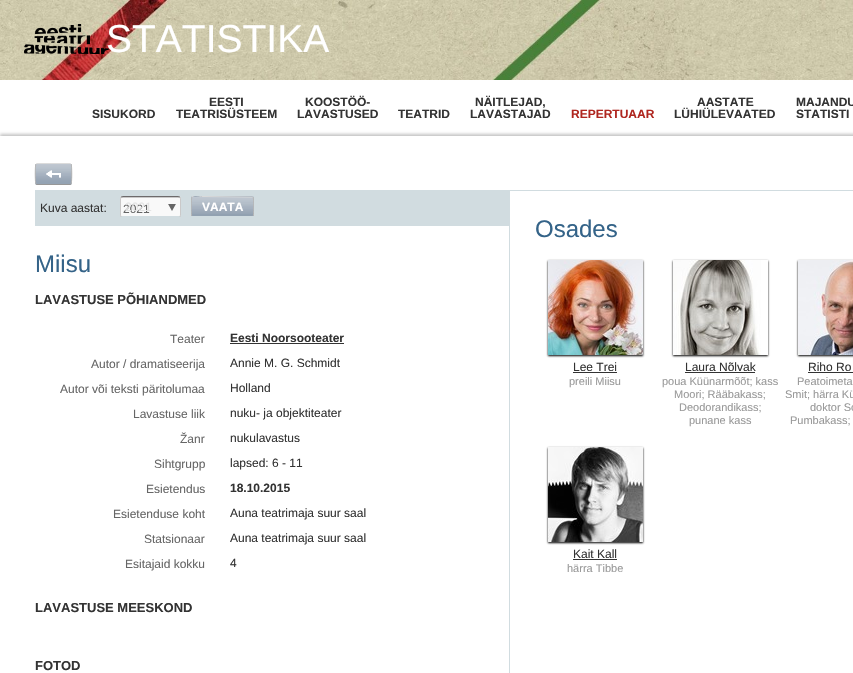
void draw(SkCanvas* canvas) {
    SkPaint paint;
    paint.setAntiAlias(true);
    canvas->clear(0xFFFFFFFF);
    canvas->drawImageRect(SkImages::DeferredFromEncodedData(SkData::MakeFromFileName("img1.png")), SkRect::MakeXYWH(0, 0, 853, 80), SkSamplingOptions());
    canvas->drawImageRect(SkImages::DeferredFromEncodedData(SkData::MakeFromFileName("img2.png")), SkRect::MakeXYWH(24, 24, 85, 30), SkSamplingOptions());
    SkFont font1(fontMgr->matchFamilyStyle("Liberation Sans", SkFontStyle::Normal()), 39);
    font1.setSubpixel(true);
    paint.setColor(0xFFFFFFFF);
    canvas->drawString("STATISTIKA", 106, 52, font1, paint);
    SkFont font2(fontMgr->matchFamilyStyle("Liberation Sans", SkFontStyle::Bold()), 12);
    font2.setSubpixel(true);
    paint.setColor(0xFF333333);
    canvas->drawString("SISUKORD", 92, 118, font2, paint);
    canvas->drawString("EESTI", 209, 106, font2, paint);
    canvas->drawString("TEATRISÜSTEEM", 176, 118, font2, paint);
    canvas->drawString("KOOSTÖÖ-", 305, 106, font2, paint);
    canvas->drawString("LAVASTUSED", 297, 118, font2, paint);
    canvas->drawString("TEATRID", 398, 118, font2, paint);
    canvas->drawString("NÄITLEJAD,", 475, 106, font2, paint);
    canvas->drawString("LAVASTAJAD", 470, 118, font2, paint);
    paint.setColor(0xFFAF261F);
    canvas->drawString("REPERTUAAR", 571, 118, font2, paint);
    paint.setColor(0xFF333333);
    canvas->drawString("AASTATE", 697, 106, font2, paint);
    canvas->drawString("LÜHIÜLEVAATED", 674, 118, font2, paint);
    canvas->drawString("MAJANDU", 796, 106, font2, paint);
    canvas->drawString("STATISTI", 796, 118, font2, paint);
    paint.setColor(0x3B000000);
    paint.setMaskFilter(SkMaskFilter::MakeBlur(kNormal_SkBlurStyle, 1.5f));
    canvas->drawRect(SkRect::MakeXYWH(0, 134, 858, 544), paint);
    paint.setMaskFilter(nullptr);
    paint.setColor(0xFFFFFFFF);
    canvas->drawRect(SkRect::MakeXYWH(0, 136, 853, 537), paint);
    paint.setColor(0xFFD1DCE0);
    canvas->drawRect(SkRect::MakeXYWH(35, 190, 818, 1), paint);
    canvas->drawImageRect(SkImages::DeferredFromEncodedData(SkData::MakeFromFileName("img3.png")), SkRect::MakeXYWH(35, 164, 37, 21), SkSamplingOptions());
    paint.setStyle(SkPaint::kStroke_Style);
    paint.setStrokeWidth(1);
    paint.setColor(0xFFDBDBDB);
    canvas->drawPath(SkPathBuilder().moveTo(36, 164).lineTo(37, 163.5f).lineTo(70, 163.5f).lineTo(71, 164).detach(), paint);
    paint.setColor(0xFFB7B7B7);
    canvas->drawPath(SkPathBuilder().moveTo(71, 164).cubicTo(72, 164.5f, 72, 183.5f, 71, 184).detach(), paint);
    paint.setColor(0xFF979797);
    canvas->drawPath(SkPathBuilder().moveTo(71, 184).lineTo(70, 184.5f).lineTo(37, 184.5f).lineTo(36, 184).detach(), paint);
    paint.setColor(0xFFB7B7B7);
    canvas->drawPath(SkPathBuilder().moveTo(36, 184).cubicTo(35, 183.5f, 35, 164.5f, 36, 164).detach(), paint);
    canvas->drawImageRect(SkImages::DeferredFromEncodedData(SkData::MakeFromFileName("img4.png")), SkRect::MakeXYWH(46, 170, 15, 8), SkSamplingOptions());
    paint.setStyle(SkPaint::kFill_Style);
    paint.setColor(0xFFD1DCE0);
    canvas->drawRect(SkRect::MakeXYWH(509, 191, 1, 482), paint);
    canvas->drawRect(SkRect::MakeXYWH(35, 191, 474, 35), paint);
    SkFont font3(fontMgr->matchFamilyStyle("Liberation Sans", SkFontStyle::Normal()), 12);
    font3.setSubpixel(true);
    paint.setColor(0xFF333333);
    canvas->drawString("Kuva aastat:", 40, 212, font3, paint);
    canvas->save();
    canvas->clipRect(SkRect::MakeXYWH(120, 196, 61, 20));
    paint.setColor(0xFFF9F9F9);
    canvas->drawRoundRect(SkRect::MakeXYWH(120, 196, 61, 22), 3, 3, paint);
    canvas->restore();
    canvas->drawImageRect(SkImages::DeferredFromEncodedData(SkData::MakeFromFileName("img5.png")), SkRect::MakeXYWH(120, 197, 61, 1), SkSamplingOptions());
    paint.setStyle(SkPaint::kStroke_Style);
    paint.setColor(0xFF6D6A6B);
    canvas->drawPath(SkPathBuilder().moveTo(121, 197).lineTo(123, 196.5f).lineTo(178, 196.5f).lineTo(180, 197).detach(), paint);
    paint.setColor(0xFFCAC9C9);
    canvas->drawPath(SkPathBuilder().moveTo(180, 197).cubicTo(180, 197.5f, 180.5f, 198.5f, 180.5f, 199).lineTo(180.5f, 215).cubicTo(180.5f, 215.5f, 180, 216.5f, 180, 217).moveTo(121, 217).cubicTo(121, 216.5f, 120.5f, 215.5f, 120.5f, 215).lineTo(120.5f, 199).cubicTo(120.5f, 198.5f, 121, 197.5f, 121, 197).detach(), paint);
    paint.setStyle(SkPaint::kFill_Style);
    paint.setColor(0xFF666666);
    canvas->drawString("2021", 123, 213, font3, paint);
    paint.setColor(0xFFE4E4E4);
    canvas->drawString("2021", 125, 211, font3, paint);
    canvas->drawImageRect(SkImages::DeferredFromEncodedData(SkData::MakeFromFileName("img6.png")), SkRect::MakeXYWH(168, 204, 8, 7), SkSamplingOptions());
    paint.setColor(0xFF92A1B1);
    canvas->drawPath(SkPathBuilder().moveTo(193, 196).lineTo(252, 196).cubicTo(253, 196, 254, 197, 254, 198).lineTo(254, 216).lineTo(191, 216).lineTo(191, 198).cubicTo(191, 197, 192, 196, 193, 196).close().detach(), paint);
    canvas->drawImageRect(SkImages::DeferredFromEncodedData(SkData::MakeFromFileName("img7.png")), SkRect::MakeXYWH(191, 197, 63, 17), SkSamplingOptions());
    canvas->save();
    canvas->clipRect(SkRect::MakeXYWH(191, 196, 63, 20));
    paint.setStyle(SkPaint::kStroke_Style);
    paint.setColor(0xFFDBDBDB);
    canvas->drawPath(SkPathBuilder().moveTo(192, 197).cubicTo(194.5f, 194.5f, 199, 196.5f, 203, 196.5f).lineTo(253, 197).detach(), paint);
    paint.setColor(0xFFB7B7B7);
    canvas->drawPath(SkPathBuilder().moveTo(253, 197).cubicTo(254, 197.5f, 254, 216.5f, 253, 217).moveTo(192, 217).cubicTo(191, 216.5f, 191, 197.5f, 192, 197).detach(), paint);
    canvas->restore();
    paint.setStyle(SkPaint::kFill_Style);
    paint.setColor(0xFFFFFFFF);
    canvas->drawString("VAATA", 202, 211, font2, paint);
    SkFont font4(fontMgr->matchFamilyStyle("Liberation Sans", SkFontStyle::Normal()), 24);
    font4.setSubpixel(true);
    paint.setColor(0xFF346388);
    canvas->drawString("Miisu", 35, 272, font4, paint);
    SkFont font5(fontMgr->matchFamilyStyle("Liberation Sans", SkFontStyle::Bold()), 13);
    font5.setSubpixel(true);
    paint.setColor(0xFF333333);
    canvas->drawString("LAVASTUSE PÕHIANDMED", 35, 304, font5, paint);
    paint.setColor(0xFF666666);
    canvas->drawString("Teater", 170, 343, font3, paint);
    paint.setColor(0xFF333333);
    canvas->drawString("Eesti Noorsooteater", 230, 342, font2, paint);
    canvas->drawRect(SkRect::MakeXYWH(230, 343, 114, 1), paint);
    paint.setColor(0xFF666666);
    canvas->drawString("Autor / dramatiseerija", 91, 368, font3, paint);
    paint.setColor(0xFF333333);
    canvas->drawString("Annie M. G. Schmidt", 230, 367, font3, paint);
    paint.setColor(0xFF666666);
    canvas->drawString("Autor või teksti päritolumaa", 60, 393, font3, paint);
    paint.setColor(0xFF333333);
    canvas->drawString("Holland", 230, 392, font3, paint);
    paint.setColor(0xFF666666);
    canvas->drawString("Lavastuse liik", 133, 418, font3, paint);
    paint.setColor(0xFF333333);
    canvas->drawString("nuku- ja objektiteater", 230, 417, font3, paint);
    paint.setColor(0xFF666666);
    canvas->drawString("Žanr", 180, 443, font3, paint);
    paint.setColor(0xFF333333);
    canvas->drawString("nukulavastus", 230, 442, font3, paint);
    paint.setColor(0xFF666666);
    canvas->drawString("Sihtgrupp", 154, 468, font3, paint);
    paint.setColor(0xFF333333);
    canvas->drawString("lapsed: 6 - 11", 230, 467, font3, paint);
    paint.setColor(0xFF666666);
    canvas->drawString("Esietendus", 146, 493, font3, paint);
    paint.setColor(0xFF333333);
    canvas->drawString("18.10.2015", 230, 492, font2, paint);
    paint.setColor(0xFF666666);
    canvas->drawString("Esietenduse koht", 113, 518, font3, paint);
    paint.setColor(0xFF333333);
    canvas->drawString("Auna teatrimaja suur saal", 230, 517, font3, paint);
    paint.setColor(0xFF666666);
    canvas->drawString("Statsionaar", 144, 543, font3, paint);
    paint.setColor(0xFF333333);
    canvas->drawString("Auna teatrimaja suur saal", 230, 542, font3, paint);
    paint.setColor(0xFF666666);
    canvas->drawString("Esitajaid kokku", 125, 568, font3, paint);
    paint.setColor(0xFF333333);
    canvas->drawString("4", 230, 567, font3, paint);
    canvas->drawString("LAVASTUSE MEESKOND", 35, 612, font5, paint);
    canvas->drawString("FOTOD", 35, 670, font5, paint);
    paint.setColor(0xFF346388);
    canvas->drawString("Osades", 535, 237, font4, paint);
    paint.setColor(0xFF000000);
    paint.setMaskFilter(SkMaskFilter::MakeBlur(kNormal_SkBlurStyle, 1));
    canvas->drawRect(SkRect::MakeXYWH(548, 261, 95, 95), paint);
    paint.setMaskFilter(nullptr);
    canvas->drawImageRect(SkImages::DeferredFromEncodedData(SkData::MakeFromFileName("img8.png")), SkRect::MakeXYWH(548, 260, 95, 95), SkSamplingOptions());
    paint.setColor(0xFF333333);
    canvas->drawString("Lee Trei", 573, 371, font3, paint);
    canvas->drawRect(SkRect::MakeXYWH(573, 372, 44, 1), paint);
    SkFont font6(fontMgr->matchFamilyStyle("Liberation Sans", SkFontStyle::Normal()), 11);
    font6.setSubpixel(true);
    paint.setColor(0xFF999999);
    canvas->drawString("preili Miisu", 569, 385, font6, paint);
    canvas->save();
    canvas->clipPath(SkPathBuilder(SkPathFillType::kEvenOdd).moveTo(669, 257).lineTo(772, 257).lineTo(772, 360).lineTo(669, 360).close().moveTo(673, 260).lineTo(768, 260).lineTo(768, 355).lineTo(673, 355).close().detach(), true);
    paint.setColor(0xFF000000);
    paint.setMaskFilter(SkMaskFilter::MakeBlur(kNormal_SkBlurStyle, 1));
    canvas->drawRect(SkRect::MakeXYWH(673, 261, 95, 95), paint);
    paint.setMaskFilter(nullptr);
    canvas->restore();
    canvas->drawImageRect(SkImages::DeferredFromEncodedData(SkData::MakeFromFileName("img9.png")), SkRect::MakeXYWH(673, 260, 88, 95), SkSamplingOptions());
    paint.setColor(0xFF333333);
    canvas->drawString("Laura Nõlvak", 685, 371, font3, paint);
    canvas->drawRect(SkRect::MakeXYWH(685, 372, 70, 1), paint);
    paint.setColor(0xFF999999);
    canvas->drawString("poua Küünarmõõt; kass", 662, 385, font6, paint);
    canvas->drawString("Moori; Rääbakass;", 674, 398, font6, paint);
    canvas->drawString("Deodorandikass;", 679, 411, font6, paint);
    canvas->drawString("punane kass", 689, 424, font6, paint);
    paint.setColor(0xFF000000);
    paint.setMaskFilter(SkMaskFilter::MakeBlur(kNormal_SkBlurStyle, 1));
    canvas->drawRect(SkRect::MakeXYWH(798, 261, 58, 95), paint);
    paint.setMaskFilter(nullptr);
    canvas->drawImageRect(SkImages::DeferredFromEncodedData(SkData::MakeFromFileName("img10.png")), SkRect::MakeXYWH(798, 260, 55, 95), SkSamplingOptions());
    paint.setColor(0xFF333333);
    canvas->drawString("Riho Ro", 808, 371, font3, paint);
    canvas->drawRect(SkRect::MakeXYWH(808, 372, 45, 1), paint);
    paint.setColor(0xFF999999);
    canvas->drawString("Peatoimeta", 797, 385, font6, paint);
    canvas->drawString("Smit; härra Kü", 785, 398, font6, paint);
    canvas->drawString("doktor Sc", 810, 411, font6, paint);
    canvas->drawString("Pumbakass;", 790, 424, font6, paint);
    paint.setColor(0xFF000000);
    paint.setMaskFilter(SkMaskFilter::MakeBlur(kNormal_SkBlurStyle, 1));
    canvas->drawRect(SkRect::MakeXYWH(548, 448, 95, 95), paint);
    paint.setMaskFilter(nullptr);
    canvas->drawImageRect(SkImages::DeferredFromEncodedData(SkData::MakeFromFileName("img11.png")), SkRect::MakeXYWH(548, 447, 95, 95), SkSamplingOptions());
    paint.setColor(0xFF333333);
    canvas->drawString("Kait Kall", 573, 558, font3, paint);
    canvas->drawRect(SkRect::MakeXYWH(573, 559, 44, 1), paint);
    paint.setColor(0xFF999999);
    canvas->drawString("härra Tibbe", 567, 572, font6, paint);
}
